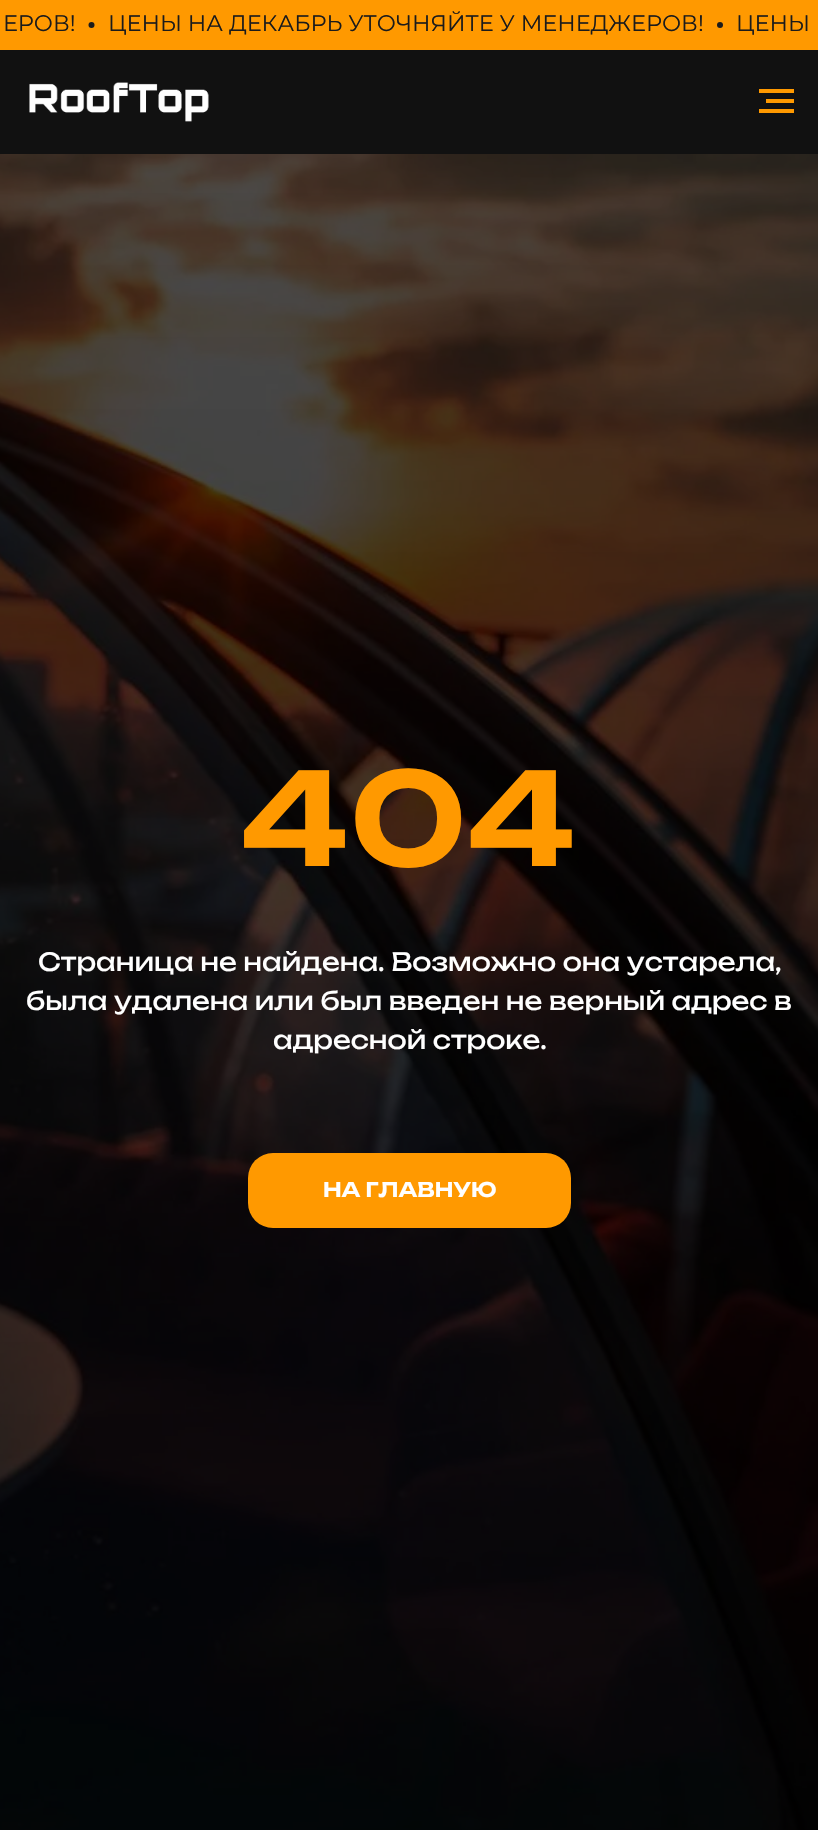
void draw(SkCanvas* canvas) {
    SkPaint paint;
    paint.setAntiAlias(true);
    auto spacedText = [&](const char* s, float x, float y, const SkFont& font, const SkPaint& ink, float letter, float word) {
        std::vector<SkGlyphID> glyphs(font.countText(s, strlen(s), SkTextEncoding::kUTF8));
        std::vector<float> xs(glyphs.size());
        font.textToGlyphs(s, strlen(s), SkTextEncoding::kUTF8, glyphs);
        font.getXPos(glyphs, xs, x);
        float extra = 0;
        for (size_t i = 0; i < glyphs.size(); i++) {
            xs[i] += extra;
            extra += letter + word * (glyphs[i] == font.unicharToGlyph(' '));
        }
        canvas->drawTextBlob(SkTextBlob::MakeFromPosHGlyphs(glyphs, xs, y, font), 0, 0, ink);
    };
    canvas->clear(0xFFFFFFFF);
    paint.setColor(0xFFFF9900);
    canvas->drawRect(SkRect::MakeXYWH(0, 0, 818, 50), paint);
    SkFont font1(fontMgr->matchFamilyStyle("Montserrat", SkFontStyle::Normal()), 22.5f);
    font1.setSubpixel(true);
    paint.setColor(0xFF1B1B1B);
    canvas->drawString("ЕРОВ!", 3, 31, font1, paint);
    canvas->drawCircle(91.5f, 25, 3, paint);
    canvas->drawString("ЦЕНЫ НА ДЕКАБРЬ УТОЧНЯЙТЕ У МЕНЕДЖЕРОВ!", 108, 31, font1, paint);
    canvas->drawCircle(720, 25, 3, paint);
    canvas->drawString("ЦЕНЫ", 736, 31, font1, paint);
    paint.setColor(0xFF111111);
    canvas->drawRect(SkRect::MakeXYWH(0, 50, 818, 104), paint);
    canvas->drawImageRect(SkImages::DeferredFromEncodedData(SkData::MakeFromFileName("img1.png")), SkRect::MakeXYWH(29, 82, 180, 40), SkSamplingOptions());
    paint.setColor(0xFFFF9900);
    canvas->drawRect(SkRect::MakeXYWH(759, 89, 35, 4), paint);
    canvas->drawRect(SkRect::MakeXYWH(766, 99, 28, 4), paint);
    canvas->drawRect(SkRect::MakeXYWH(759, 109, 35, 4), paint);
    canvas->drawImageRect(SkImages::DeferredFromEncodedData(SkData::MakeFromFileName("img2.png")), SkRect::MakeXYWH(0, 154, 818, 1676), SkSamplingOptions());
    SkFont font2(fontMgr->matchFamilyStyle("Unbounded", SkFontStyle(600, SkFontStyle::kNormal_Width, SkFontStyle::kUpright_Slant)), 127.5f);
    font2.setSubpixel(true);
    spacedText("404", 241, 866, font2, paint, 1, 0);
    SkFont font3(fontMgr->matchFamilyStyle("Unbounded", SkFontStyle::Normal()), 25);
    font3.setSubpixel(true);
    paint.setColor(0xFFFFFFFF);
    canvas->drawString("Страница не найдена. Возможно она устарела,", 38, 971, font3, paint);
    canvas->drawString("была удалена или был введен не верный адрес в", 26, 1010, font3, paint);
    canvas->drawString("адресной строке.", 273, 1049, font3, paint);
    paint.setColor(0xFFFF9900);
    canvas->drawRoundRect(SkRect::MakeXYWH(248, 1153, 323, 75), 25, 25, paint);
    SkFont font4(fontMgr->matchFamilyStyle("Unbounded", SkFontStyle(600, SkFontStyle::kNormal_Width, SkFontStyle::kUpright_Slant)), 20);
    font4.setSubpixel(true);
    paint.setColor(0xFFFFFFFF);
    canvas->drawString("НА ГЛАВНУЮ", 323, 1197, font4, paint);
}
